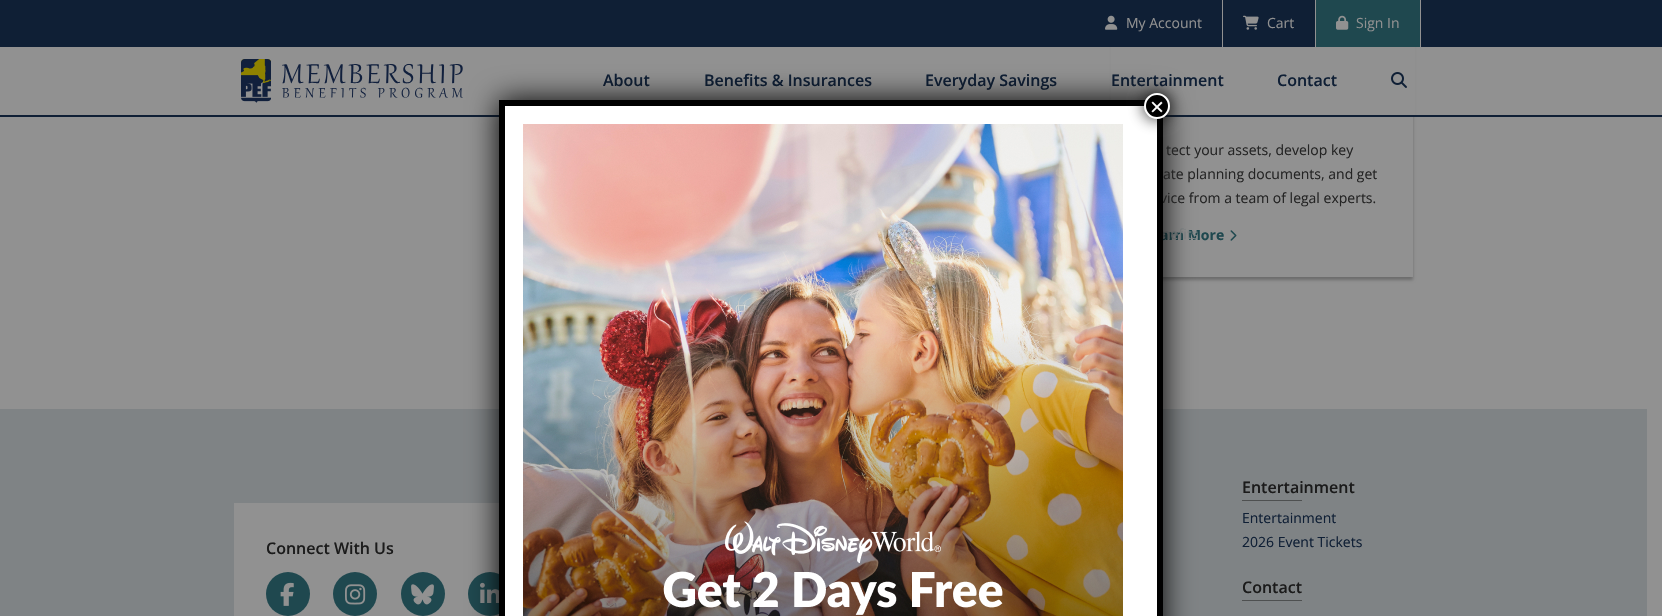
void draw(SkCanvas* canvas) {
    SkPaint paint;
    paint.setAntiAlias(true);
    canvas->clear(0xFF919191);
    canvas->save();
    canvas->clipPath(SkPathBuilder(SkPathFillType::kEvenOdd).moveTo(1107, 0).lineTo(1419, 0).lineTo(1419, 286).lineTo(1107, 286).close().moveTo(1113, -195).lineTo(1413, -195).lineTo(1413, 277).lineTo(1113, 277).close().detach(), true);
    paint.setColor(0x40000000);
    paint.setMaskFilter(SkMaskFilter::MakeBlur(kNormal_SkBlurStyle, 1.5f));
    canvas->drawRect(SkRect::MakeXYWH(1113, -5, 300, 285), paint);
    paint.setMaskFilter(nullptr);
    canvas->restore();
    paint.setColor(0xFF919191);
    canvas->drawRect(SkRect::MakeXYWH(1111, 47, 304, 68), paint);
    paint.setColor(0xFF0F1F35);
    canvas->drawRect(SkRect::MakeXYWH(0, 115, 1662, 2), paint);
    canvas->drawRect(SkRect::MakeXYWH(0, 0, 1662, 47), paint);
    paint.setColor(0xFF919191);
    canvas->drawRect(SkRect::MakeXYWH(1222, 0, 1, 47), paint);
    canvas->drawImageRect(SkImages::DeferredFromEncodedData(SkData::MakeFromFileName("img1.png")), SkRect::MakeXYWH(1105, 15, 13, 15), SkSamplingOptions());
    SkFont font1(fontMgr->matchFamilyStyle("Open Sans", SkFontStyle::Normal()), 14);
    font1.setSubpixel(true);
    canvas->drawString("My Account", 1126, 28, font1, paint);
    canvas->drawRect(SkRect::MakeXYWH(1315, 0, 1, 47), paint);
    canvas->drawImageRect(SkImages::DeferredFromEncodedData(SkData::MakeFromFileName("img2.png")), SkRect::MakeXYWH(1243, 15, 16, 15), SkSamplingOptions());
    canvas->drawString("Cart", 1267, 28, font1, paint);
    canvas->drawRect(SkRect::MakeXYWH(1420, 0, 1, 47), paint);
    paint.setColor(0xFF1F484F);
    canvas->drawRect(SkRect::MakeXYWH(1316, 0, 104, 47), paint);
    canvas->drawImageRect(SkImages::DeferredFromEncodedData(SkData::MakeFromFileName("img3.png")), SkRect::MakeXYWH(1336, 15, 13, 15), SkSamplingOptions());
    paint.setColor(0xFF919191);
    canvas->drawString("Sign In", 1356, 28, font1, paint);
    canvas->drawImageRect(SkImages::DeferredFromEncodedData(SkData::MakeFromFileName("img4.png")), SkRect::MakeXYWH(241, 59, 30, 44), SkSamplingOptions());
    canvas->drawImageRect(SkImages::DeferredFromEncodedData(SkData::MakeFromFileName("img5.png")), SkRect::MakeXYWH(282, 63, 181, 35), SkSamplingOptions());
    SkFont font2(fontMgr->matchFamilyStyle("Open Sans", SkFontStyle(600, SkFontStyle::kNormal_Width, SkFontStyle::kUpright_Slant)), 16);
    font2.setSubpixel(true);
    paint.setColor(0xFF0F1F35);
    canvas->drawString("About", 603, 86, font2, paint);
    SkFont font3(fontMgr->matchFamilyStyle("Open Sans", SkFontStyle::Bold()), 14);
    font3.setSubpixel(true);
    paint.setColor(0xFF1F484F);
    canvas->drawString("arn More", 1160, 240, font3, paint);
    paint.setColor(0xFF838889);
    canvas->drawString("nefits", 1162, 239, font1, paint);
    canvas->drawImageRect(SkImages::DeferredFromEncodedData(SkData::MakeFromFileName("img6.png")), SkRect::MakeXYWH(1391, 72, 16, 16), SkSamplingOptions());
    paint.setColor(0xFF0F1F35);
    canvas->drawString("Benefits & Insurances", 704, 86, font2, paint);
    canvas->drawString("Everyday Savings", 925, 86, font2, paint);
    canvas->drawString("Entertainment", 1111, 86, font2, paint);
    canvas->drawString("Contact", 1277, 86, font2, paint);
    paint.setColor(0xFF7F8385);
    canvas->drawRect(SkRect::MakeXYWH(0, 409, 1647, 207), paint);
    paint.setColor(0xFF919191);
    canvas->drawRect(SkRect::MakeXYWH(234, 503, 265, 113), paint);
    paint.setColor(0xFF1F484F);
    canvas->drawCircle(490, 594, 22, paint);
    canvas->drawImageRect(SkImages::DeferredFromEncodedData(SkData::MakeFromFileName("img12.png")), SkRect::MakeXYWH(480, 582, 19, 21), SkSamplingOptions());
    paint.setColor(0xFF020202);
    paint.setMaskFilter(SkMaskFilter::MakeBlur(kNormal_SkBlurStyle, 15));
    canvas->drawRoundRect(SkRect::MakeXYWH(499, 100, 664, 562), 1, 1, paint);
    paint.setMaskFilter(nullptr);
    paint.setColor(0xFFFFFFFF);
    canvas->drawRect(SkRect::MakeXYWH(505, 106, 652, 510), paint);
    paint.setColor(0xFF242424);
    canvas->drawString("vice from a team of legal experts.", 1160, 203, font1, paint);
    paint.setStyle(SkPaint::kStroke_Style);
    paint.setStrokeWidth(6);
    paint.setColor(0xFF000000);
    canvas->drawPath(SkPathBuilder().moveTo(502, 103).lineTo(1160, 103).lineTo(1160, 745).lineTo(502, 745).close().detach(), paint);
    canvas->drawImageRect(SkImages::DeferredFromEncodedData(SkData::MakeFromFileName("img7.png")), SkRect::MakeXYWH(523, 124, 600, 492), SkSamplingOptions());
    paint.setStyle(SkPaint::kFill_Style);
    paint.setColor(0xBF020202);
    paint.setMaskFilter(SkMaskFilter::MakeBlur(kNormal_SkBlurStyle, 7.5f));
    canvas->drawRoundRect(SkRect::MakeXYWH(1143, 92, 28, 28), 14, 14, paint);
    paint.setMaskFilter(nullptr);
    paint.setColor(0xFF000000);
    canvas->drawCircle(1157, 106, 12, paint);
    paint.setStyle(SkPaint::kStroke_Style);
    paint.setStrokeWidth(2);
    paint.setColor(0xFFFFFFFF);
    canvas->drawCircle(1157, 106, 12, paint);
    SkFont font4(fontMgr->matchFamilyStyle("Liberation Sans", SkFontStyle::Normal()), 24);
    font4.setSubpixel(true);
    paint.setStyle(SkPaint::kFill_Style);
    canvas->drawString("×", 1150, 115, font4, paint);
    paint.setColor(0xFF242424);
    canvas->drawString("tect your assets, develop key", 1166, 155, font1, paint);
    canvas->drawString("ate planning documents, and get", 1163, 179, font1, paint);
    canvas->drawImageRect(SkImages::DeferredFromEncodedData(SkData::MakeFromFileName("img8.png")), SkRect::MakeXYWH(1230, 230, 7, 11), SkSamplingOptions());
    paint.setColor(0xFF1B1B1B);
    canvas->drawString("Connect With Us", 266, 554, font2, paint);
    paint.setColor(0xFF1F484F);
    canvas->drawCircle(288, 594, 22, paint);
    canvas->drawImageRect(SkImages::DeferredFromEncodedData(SkData::MakeFromFileName("img9.png")), SkRect::MakeXYWH(280, 582, 14, 24), SkSamplingOptions());
    canvas->drawCircle(355, 594, 22, paint);
    canvas->drawImageRect(SkImages::DeferredFromEncodedData(SkData::MakeFromFileName("img10.png")), SkRect::MakeXYWH(345, 584, 21, 21), SkSamplingOptions());
    canvas->drawCircle(423, 594, 22, paint);
    canvas->drawImageRect(SkImages::DeferredFromEncodedData(SkData::MakeFromFileName("img11.png")), SkRect::MakeXYWH(411, 584, 23, 21), SkSamplingOptions());
    paint.setColor(0xFF1B1B1B);
    canvas->drawString("Entertainment", 1242, 493, font2, paint);
    paint.setColor(0xFF4E5050);
    canvas->drawRect(SkRect::MakeXYWH(1242, 500, 60, 1), paint);
    paint.setColor(0xFF0F1F35);
    canvas->drawString("Entertainment", 1242, 523, font1, paint);
    canvas->drawString("2026 Event Tickets", 1242, 547, font1, paint);
    paint.setColor(0xFF1B1B1B);
    canvas->drawString("Contact", 1242, 593, font2, paint);
    paint.setColor(0xFF4E5050);
    canvas->drawRect(SkRect::MakeXYWH(1242, 600, 60, 1), paint);
}
